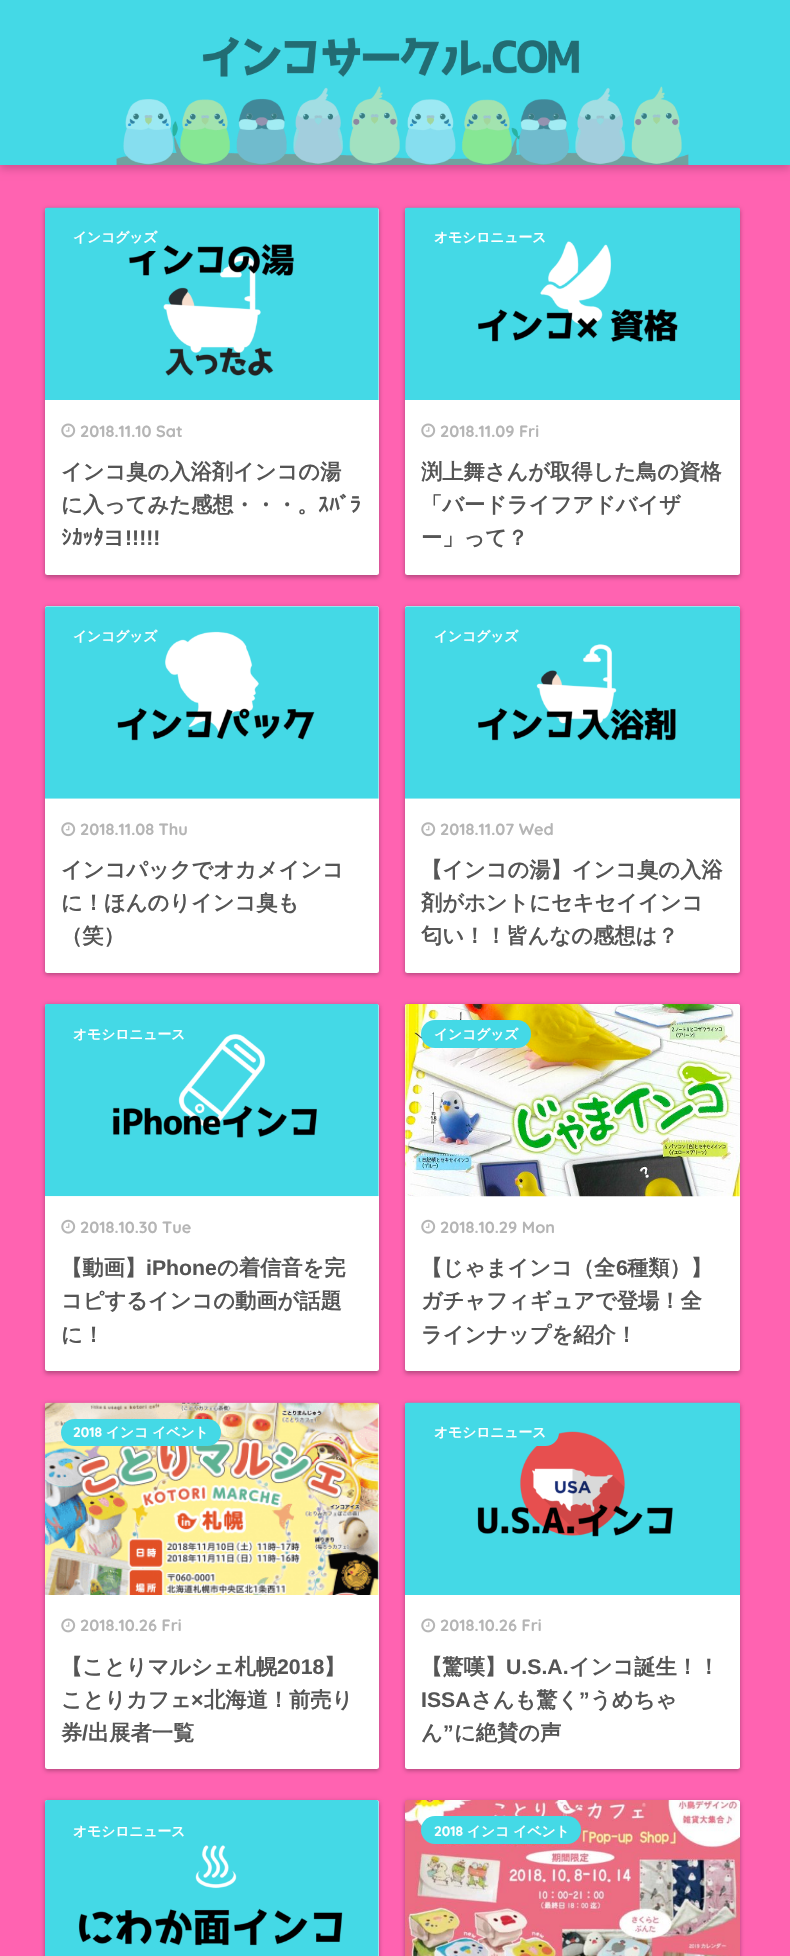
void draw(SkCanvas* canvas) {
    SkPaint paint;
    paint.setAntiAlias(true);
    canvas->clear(0xFFFF63B1);
    paint.setColor(0x2E000000);
    paint.setMaskFilter(SkMaskFilter::MakeBlur(kNormal_SkBlurStyle, 4));
    canvas->drawRect(SkRect::MakeXYWH(0, 4, 790, 165), paint);
    paint.setMaskFilter(nullptr);
    paint.setColor(0xFF44D9E6);
    canvas->drawRect(SkRect::MakeXYWH(0, 0, 790, 165), paint);
    canvas->drawImageRect(SkImages::DeferredFromEncodedData(SkData::MakeFromFileName("img1.png")), SkRect::MakeXYWH(116, 37, 573, 128), SkSamplingOptions());
    paint.setColor(0x38000000);
    paint.setMaskFilter(SkMaskFilter::MakeBlur(kNormal_SkBlurStyle, 2));
    canvas->drawRoundRect(SkRect::MakeXYWH(45, 210, 334, 368), 2.5f, 2.5f, paint);
    paint.setMaskFilter(nullptr);
    paint.setColor(0x1F000000);
    paint.setMaskFilter(SkMaskFilter::MakeBlur(kNormal_SkBlurStyle, 2));
    canvas->drawRoundRect(SkRect::MakeXYWH(45, 208, 334, 367), 2.5f, 2.5f, paint);
    paint.setMaskFilter(nullptr);
    paint.setColor(0xFFFFFFFF);
    canvas->drawRoundRect(SkRect::MakeXYWH(45, 208, 334, 367), 2.5f, 2.5f, paint);
    canvas->drawImageRect(SkImages::DeferredFromEncodedData(SkData::MakeFromFileName("img2.png")), SkRect::MakeXYWH(45, 207, 334, 193), SkSamplingOptions());
    paint.setColor(0xFF44D9E6);
    canvas->drawRoundRect(SkRect::MakeXYWH(61, 224, 109, 27), 13.5f, 13.5f, paint);
    SkFont font1(fontMgr->matchFamilyStyle("WenQuanYi Zen Hei", SkFontStyle::Bold()), 13.75f);
    font1.setSubpixel(true);
    paint.setColor(0xFFFFFFFF);
    canvas->drawString("インコグッズ", 73, 242, font1, paint);
    canvas->drawImageRect(SkImages::DeferredFromEncodedData(SkData::MakeFromFileName("img3.png")), SkRect::MakeXYWH(61, 423, 15, 15), SkSamplingOptions());
    SkFont font2(fontMgr->matchFamilyStyle("Quicksand", SkFontStyle::Bold()), 16.25f);
    font2.setSubpixel(true);
    paint.setColor(0xFFB5B5B5);
    canvas->drawString("2018.11.10 Sat", 80, 437, font2, paint);
    SkFont font3(fontMgr->matchFamilyStyle("WenQuanYi Zen Hei", SkFontStyle::Bold()), 21.25f);
    font3.setSubpixel(true);
    paint.setColor(0xFF555555);
    canvas->drawString("インコ臭の入浴剤インコの湯", 61, 479, font3, paint);
    canvas->drawString("に入ってみた感想・・・。", 61, 512, font3, paint);
    SkFont font4(fontMgr->matchFamilyStyle("IPAPGothic", SkFontStyle::Bold()), 21.25f);
    font4.setSubpixel(true);
    canvas->drawString("ｽﾊﾞﾗ", 318, 512, font4, paint);
    canvas->drawString("ｼｶｯﾀ", 61, 545, font4, paint);
    canvas->drawString("ヨ", 103, 545, font3, paint);
    SkFont font5(fontMgr->matchFamilyStyle("Liberation Sans", SkFontStyle::Bold()), 21.25f);
    font5.setSubpixel(true);
    canvas->drawString("!!!!!", 125, 545, font5, paint);
    paint.setColor(0x38000000);
    paint.setMaskFilter(SkMaskFilter::MakeBlur(kNormal_SkBlurStyle, 2));
    canvas->drawRoundRect(SkRect::MakeXYWH(405, 210, 335, 368), 2.5f, 2.5f, paint);
    paint.setMaskFilter(nullptr);
    paint.setColor(0x1F000000);
    paint.setMaskFilter(SkMaskFilter::MakeBlur(kNormal_SkBlurStyle, 2));
    canvas->drawRoundRect(SkRect::MakeXYWH(405, 208, 335, 367), 2.5f, 2.5f, paint);
    paint.setMaskFilter(nullptr);
    paint.setColor(0xFFFFFFFF);
    canvas->drawRoundRect(SkRect::MakeXYWH(405, 208, 335, 367), 2.5f, 2.5f, paint);
    canvas->drawImageRect(SkImages::DeferredFromEncodedData(SkData::MakeFromFileName("img4.png")), SkRect::MakeXYWH(405, 207, 335, 193), SkSamplingOptions());
    canvas->drawString("オモシロニュース", 434, 242, font1, paint);
    canvas->drawImageRect(SkImages::DeferredFromEncodedData(SkData::MakeFromFileName("img3.png")), SkRect::MakeXYWH(421, 423, 15, 15), SkSamplingOptions());
    paint.setColor(0xFFB5B5B5);
    canvas->drawString("2018.11.09 Fri", 440, 437, font2, paint);
    paint.setColor(0xFF555555);
    canvas->drawString("渕上舞さんが取得した鳥の資格", 421, 479, font3, paint);
    canvas->drawString("「バードライフアドバイザ", 421, 512, font3, paint);
    canvas->drawString("ー」って？", 421, 545, font3, paint);
    paint.setColor(0x38000000);
    paint.setMaskFilter(SkMaskFilter::MakeBlur(kNormal_SkBlurStyle, 2));
    canvas->drawRoundRect(SkRect::MakeXYWH(45, 609, 334, 366), 2.5f, 2.5f, paint);
    paint.setMaskFilter(nullptr);
    paint.setColor(0x1F000000);
    paint.setMaskFilter(SkMaskFilter::MakeBlur(kNormal_SkBlurStyle, 2));
    canvas->drawRoundRect(SkRect::MakeXYWH(45, 606, 334, 367), 2.5f, 2.5f, paint);
    paint.setMaskFilter(nullptr);
    paint.setColor(0xFFFFFFFF);
    canvas->drawRoundRect(SkRect::MakeXYWH(45, 606, 334, 367), 2.5f, 2.5f, paint);
    canvas->drawImageRect(SkImages::DeferredFromEncodedData(SkData::MakeFromFileName("img5.png")), SkRect::MakeXYWH(45, 606, 334, 193), SkSamplingOptions());
    canvas->drawString("インコグッズ", 73, 641, font1, paint);
    canvas->drawImageRect(SkImages::DeferredFromEncodedData(SkData::MakeFromFileName("img6.png")), SkRect::MakeXYWH(61, 822, 15, 15), SkSamplingOptions());
    paint.setColor(0xFFB5B5B5);
    canvas->drawString("2018.11.08 Thu", 80, 835, font2, paint);
    paint.setColor(0xFF555555);
    canvas->drawString("インコパックでオカメインコ", 61, 877, font3, paint);
    canvas->drawString("に！ほんのりインコ臭も", 61, 910, font3, paint);
    canvas->drawString("（笑）", 61, 943, font3, paint);
    paint.setColor(0x38000000);
    paint.setMaskFilter(SkMaskFilter::MakeBlur(kNormal_SkBlurStyle, 2));
    canvas->drawRoundRect(SkRect::MakeXYWH(405, 609, 335, 366), 2.5f, 2.5f, paint);
    paint.setMaskFilter(nullptr);
    paint.setColor(0x1F000000);
    paint.setMaskFilter(SkMaskFilter::MakeBlur(kNormal_SkBlurStyle, 2));
    canvas->drawRoundRect(SkRect::MakeXYWH(405, 606, 335, 367), 2.5f, 2.5f, paint);
    paint.setMaskFilter(nullptr);
    paint.setColor(0xFFFFFFFF);
    canvas->drawRoundRect(SkRect::MakeXYWH(405, 606, 335, 367), 2.5f, 2.5f, paint);
    canvas->drawImageRect(SkImages::DeferredFromEncodedData(SkData::MakeFromFileName("img7.png")), SkRect::MakeXYWH(405, 606, 335, 193), SkSamplingOptions());
    canvas->drawString("インコグッズ", 434, 641, font1, paint);
    canvas->drawImageRect(SkImages::DeferredFromEncodedData(SkData::MakeFromFileName("img6.png")), SkRect::MakeXYWH(421, 822, 15, 15), SkSamplingOptions());
    paint.setColor(0xFFB5B5B5);
    canvas->drawString("2018.11.07 Wed", 440, 835, font2, paint);
    paint.setColor(0xFF555555);
    canvas->drawString("【インコの湯】インコ臭の入浴", 421, 877, font3, paint);
    canvas->drawString("剤がホントにセキセイインコ", 421, 910, font3, paint);
    canvas->drawString("匂い！！皆んなの感想は？", 421, 943, font3, paint);
    paint.setColor(0x38000000);
    paint.setMaskFilter(SkMaskFilter::MakeBlur(kNormal_SkBlurStyle, 2));
    canvas->drawRoundRect(SkRect::MakeXYWH(45, 1006, 334, 368), 2.5f, 2.5f, paint);
    paint.setMaskFilter(nullptr);
    paint.setColor(0x1F000000);
    paint.setMaskFilter(SkMaskFilter::MakeBlur(kNormal_SkBlurStyle, 2));
    canvas->drawRoundRect(SkRect::MakeXYWH(45, 1004, 334, 367), 2.5f, 2.5f, paint);
    paint.setMaskFilter(nullptr);
    paint.setColor(0xFFFFFFFF);
    canvas->drawRoundRect(SkRect::MakeXYWH(45, 1004, 334, 367), 2.5f, 2.5f, paint);
    canvas->drawImageRect(SkImages::DeferredFromEncodedData(SkData::MakeFromFileName("img8.png")), SkRect::MakeXYWH(45, 1003, 334, 194), SkSamplingOptions());
    canvas->drawString("オモシロニュース", 73, 1039, font1, paint);
    canvas->drawImageRect(SkImages::DeferredFromEncodedData(SkData::MakeFromFileName("img9.png")), SkRect::MakeXYWH(61, 1219, 15, 15), SkSamplingOptions());
    paint.setColor(0xFFB5B5B5);
    canvas->drawString("2018.10.30 Tue", 80, 1233, font2, paint);
    paint.setColor(0xFF555555);
    canvas->drawString("【動画】", 61, 1275, font3, paint);
    canvas->drawString("iPhone", 146, 1275, font5, paint);
    canvas->drawString("の着信音を完", 217, 1275, font3, paint);
    canvas->drawString("コピするインコの動画が話題", 61, 1308, font3, paint);
    canvas->drawString("に！", 61, 1342, font3, paint);
    paint.setColor(0x38000000);
    paint.setMaskFilter(SkMaskFilter::MakeBlur(kNormal_SkBlurStyle, 2));
    canvas->drawRoundRect(SkRect::MakeXYWH(405, 1006, 335, 368), 2.5f, 2.5f, paint);
    paint.setMaskFilter(nullptr);
    paint.setColor(0x1F000000);
    paint.setMaskFilter(SkMaskFilter::MakeBlur(kNormal_SkBlurStyle, 2));
    canvas->drawRoundRect(SkRect::MakeXYWH(405, 1004, 335, 367), 2.5f, 2.5f, paint);
    paint.setMaskFilter(nullptr);
    paint.setColor(0xFFFFFFFF);
    canvas->drawRoundRect(SkRect::MakeXYWH(405, 1004, 335, 367), 2.5f, 2.5f, paint);
    canvas->drawImageRect(SkImages::DeferredFromEncodedData(SkData::MakeFromFileName("img10.png")), SkRect::MakeXYWH(405, 1004, 335, 193), SkSamplingOptions());
    paint.setColor(0xFF44D9E6);
    canvas->drawRoundRect(SkRect::MakeXYWH(421, 1020, 110, 28), 14, 14, paint);
    paint.setColor(0xFFFFFFFF);
    canvas->drawString("インコグッズ", 434, 1039, font1, paint);
    canvas->drawImageRect(SkImages::DeferredFromEncodedData(SkData::MakeFromFileName("img9.png")), SkRect::MakeXYWH(421, 1219, 15, 15), SkSamplingOptions());
    paint.setColor(0xFFB5B5B5);
    canvas->drawString("2018.10.29 Mon", 440, 1233, font2, paint);
    paint.setColor(0xFF555555);
    canvas->drawString("【じゃまインコ（全", 421, 1275, font3, paint);
    canvas->drawString("6", 616, 1275, font5, paint);
    canvas->drawString("種類）】", 627, 1275, font3, paint);
    canvas->drawString("ガチャフィギュアで登場！全", 421, 1308, font3, paint);
    canvas->drawString("ラインナップを紹介！", 421, 1342, font3, paint);
    paint.setColor(0x38000000);
    paint.setMaskFilter(SkMaskFilter::MakeBlur(kNormal_SkBlurStyle, 2));
    canvas->drawRoundRect(SkRect::MakeXYWH(45, 1405, 334, 366), 2.5f, 2.5f, paint);
    paint.setMaskFilter(nullptr);
    paint.setColor(0x1F000000);
    paint.setMaskFilter(SkMaskFilter::MakeBlur(kNormal_SkBlurStyle, 2));
    canvas->drawRoundRect(SkRect::MakeXYWH(45, 1403, 334, 366), 2.5f, 2.5f, paint);
    paint.setMaskFilter(nullptr);
    paint.setColor(0xFFFFFFFF);
    canvas->drawRoundRect(SkRect::MakeXYWH(45, 1403, 334, 366), 2.5f, 2.5f, paint);
    canvas->drawImageRect(SkImages::DeferredFromEncodedData(SkData::MakeFromFileName("img11.png")), SkRect::MakeXYWH(45, 1402, 334, 193), SkSamplingOptions());
    paint.setColor(0xFF44D9E6);
    canvas->drawRoundRect(SkRect::MakeXYWH(61, 1419, 160, 27), 13.5f, 13.5f, paint);
    SkFont font6(fontMgr->matchFamilyStyle("Quicksand", SkFontStyle::Bold()), 13.75f);
    font6.setSubpixel(true);
    paint.setColor(0xFFFFFFFF);
    canvas->drawString("2018", 73, 1437, font6, paint);
    canvas->drawString("インコ イベント", 106, 1437, font1, paint);
    canvas->drawImageRect(SkImages::DeferredFromEncodedData(SkData::MakeFromFileName("img3.png")), SkRect::MakeXYWH(61, 1618, 15, 15), SkSamplingOptions());
    paint.setColor(0xFFB5B5B5);
    canvas->drawString("2018.10.26 Fri", 80, 1631, font2, paint);
    paint.setColor(0xFF555555);
    canvas->drawString("【ことりマルシェ札幌", 61, 1674, font3, paint);
    canvas->drawString("2018", 277, 1674, font5, paint);
    canvas->drawString("】", 324, 1674, font3, paint);
    canvas->drawString("ことりカフェ", 61, 1707, font3, paint);
    canvas->drawString("×", 191, 1707, font5, paint);
    canvas->drawString("北海道！前売り", 204, 1707, font3, paint);
    canvas->drawString("券", 61, 1740, font3, paint);
    canvas->drawString("/", 82, 1740, font5, paint);
    canvas->drawString("出展者一覧", 88, 1740, font3, paint);
    paint.setColor(0x38000000);
    paint.setMaskFilter(SkMaskFilter::MakeBlur(kNormal_SkBlurStyle, 2));
    canvas->drawRoundRect(SkRect::MakeXYWH(405, 1405, 335, 366), 2.5f, 2.5f, paint);
    paint.setMaskFilter(nullptr);
    paint.setColor(0x1F000000);
    paint.setMaskFilter(SkMaskFilter::MakeBlur(kNormal_SkBlurStyle, 2));
    canvas->drawRoundRect(SkRect::MakeXYWH(405, 1403, 335, 366), 2.5f, 2.5f, paint);
    paint.setMaskFilter(nullptr);
    paint.setColor(0xFFFFFFFF);
    canvas->drawRoundRect(SkRect::MakeXYWH(405, 1403, 335, 366), 2.5f, 2.5f, paint);
    canvas->drawImageRect(SkImages::DeferredFromEncodedData(SkData::MakeFromFileName("img12.png")), SkRect::MakeXYWH(405, 1402, 335, 193), SkSamplingOptions());
    paint.setColor(0xFF44D9E6);
    canvas->drawRoundRect(SkRect::MakeXYWH(421, 1419, 138, 27), 13.5f, 13.5f, paint);
    paint.setColor(0xFFFFFFFF);
    canvas->drawString("オモシロニュース", 434, 1437, font1, paint);
    canvas->drawImageRect(SkImages::DeferredFromEncodedData(SkData::MakeFromFileName("img3.png")), SkRect::MakeXYWH(421, 1618, 15, 15), SkSamplingOptions());
    paint.setColor(0xFFB5B5B5);
    canvas->drawString("2018.10.26 Fri", 440, 1631, font2, paint);
    paint.setColor(0xFF555555);
    canvas->drawString("【驚嘆】", 421, 1674, font3, paint);
    canvas->drawString("U.S.A.", 506, 1674, font5, paint);
    canvas->drawString("インコ誕生！！", 569, 1674, font3, paint);
    canvas->drawString("ISSA", 421, 1707, font5, paint);
    canvas->drawString("さんも驚く", 471, 1707, font3, paint);
    canvas->drawString("”", 579, 1707, font5, paint);
    canvas->drawString("うめちゃ", 590, 1707, font3, paint);
    canvas->drawString("ん", 421, 1740, font3, paint);
    canvas->drawString("”", 443, 1740, font5, paint);
    canvas->drawString("に絶賛の声", 454, 1740, font3, paint);
    paint.setColor(0x38000000);
    paint.setMaskFilter(SkMaskFilter::MakeBlur(kNormal_SkBlurStyle, 2));
    canvas->drawRoundRect(SkRect::MakeXYWH(45, 1803, 334, 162), 2.5f, 2.5f, paint);
    paint.setMaskFilter(nullptr);
    paint.setColor(0x1F000000);
    paint.setMaskFilter(SkMaskFilter::MakeBlur(kNormal_SkBlurStyle, 2));
    canvas->drawRoundRect(SkRect::MakeXYWH(45, 1800, 334, 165), 2.5f, 2.5f, paint);
    paint.setMaskFilter(nullptr);
    paint.setColor(0xFFFFFFFF);
    canvas->drawRoundRect(SkRect::MakeXYWH(45, 1800, 334, 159), 2.5f, 2.5f, paint);
    canvas->drawImageRect(SkImages::DeferredFromEncodedData(SkData::MakeFromFileName("img13.png")), SkRect::MakeXYWH(45, 1800, 334, 156), SkSamplingOptions());
    canvas->drawString("オモシロニュース", 73, 1836, font1, paint);
    paint.setColor(0x38000000);
    paint.setMaskFilter(SkMaskFilter::MakeBlur(kNormal_SkBlurStyle, 2));
    canvas->drawRoundRect(SkRect::MakeXYWH(405, 1803, 335, 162), 2.5f, 2.5f, paint);
    paint.setMaskFilter(nullptr);
    paint.setColor(0x1F000000);
    paint.setMaskFilter(SkMaskFilter::MakeBlur(kNormal_SkBlurStyle, 2));
    canvas->drawRoundRect(SkRect::MakeXYWH(405, 1800, 335, 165), 2.5f, 2.5f, paint);
    paint.setMaskFilter(nullptr);
    canvas->drawImageRect(SkImages::DeferredFromEncodedData(SkData::MakeFromFileName("img14.png")), SkRect::MakeXYWH(405, 1800, 335, 156), SkSamplingOptions());
    paint.setColor(0xFF44D9E6);
    canvas->drawRoundRect(SkRect::MakeXYWH(421, 1816, 160, 28), 14, 14, paint);
    paint.setColor(0xFFFFFFFF);
    canvas->drawString("2018", 434, 1836, font6, paint);
    canvas->drawString("インコ イベント", 467, 1836, font1, paint);
}
